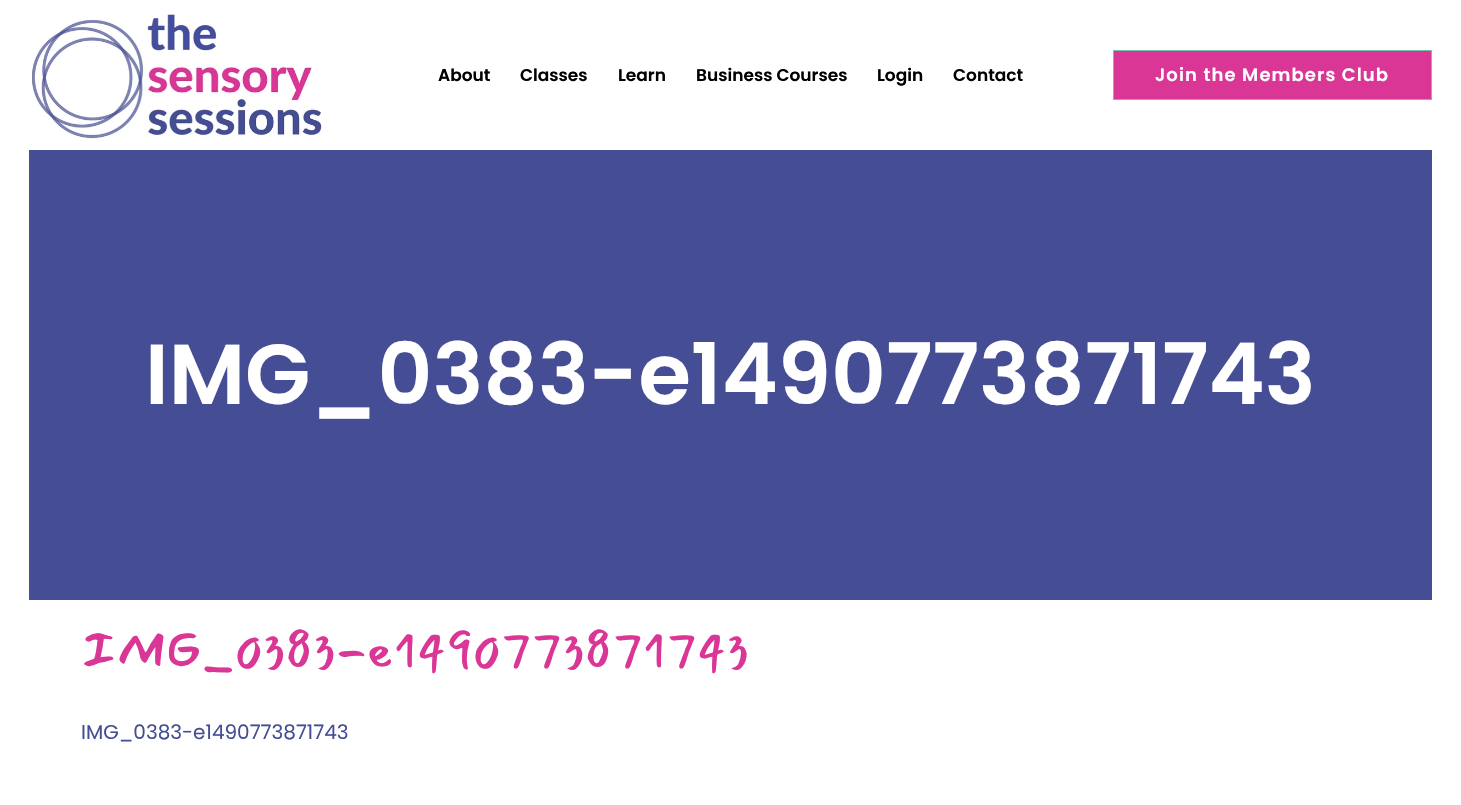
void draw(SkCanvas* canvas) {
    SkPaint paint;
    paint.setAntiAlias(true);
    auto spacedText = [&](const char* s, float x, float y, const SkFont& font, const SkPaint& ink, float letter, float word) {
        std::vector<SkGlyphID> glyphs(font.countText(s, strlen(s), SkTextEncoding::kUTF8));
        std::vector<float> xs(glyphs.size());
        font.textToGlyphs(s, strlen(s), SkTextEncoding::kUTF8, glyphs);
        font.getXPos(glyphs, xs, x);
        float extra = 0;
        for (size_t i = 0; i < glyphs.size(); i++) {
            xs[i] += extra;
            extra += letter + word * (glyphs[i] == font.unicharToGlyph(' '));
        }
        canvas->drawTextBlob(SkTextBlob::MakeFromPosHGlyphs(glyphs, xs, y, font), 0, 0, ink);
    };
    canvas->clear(0xFFFFFFFF);
    canvas->drawImageRect(SkImages::DeferredFromEncodedData(SkData::MakeFromFileName("img1.png")), SkRect::MakeXYWH(32, 14, 290, 125), SkSamplingOptions());
    SkFont font1(fontMgr->matchFamilyStyle("Poppins", SkFontStyle(600, SkFontStyle::kNormal_Width, SkFontStyle::kUpright_Slant)), 17);
    font1.setSubpixel(true);
    paint.setColor(0xFF000000);
    canvas->drawString("About", 438, 81, font1, paint);
    canvas->drawString("Classes", 520, 81, font1, paint);
    canvas->drawString("Learn", 618, 81, font1, paint);
    canvas->drawString("Business Courses", 696, 81, font1, paint);
    canvas->drawString("Login", 877, 81, font1, paint);
    canvas->drawString("Contact", 953, 81, font1, paint);
    paint.setColor(0xFFD93696);
    canvas->drawRect(SkRect::MakeXYWH(1113.5f, 50.5f, 318, 49), paint);
    paint.setStyle(SkPaint::kStroke_Style);
    paint.setStrokeWidth(1);
    paint.setColor(0xFF79BEA8);
    canvas->drawRect(SkRect::MakeXYWH(1113.5f, 50.5f, 318, 49), paint);
    SkFont font2(fontMgr->matchFamilyStyle("Poppins", SkFontStyle(600, SkFontStyle::kNormal_Width, SkFontStyle::kUpright_Slant)), 18);
    font2.setSubpixel(true);
    paint.setStyle(SkPaint::kFill_Style);
    paint.setColor(0xFFFFFFFF);
    spacedText("Join the Members Club", 1155, 81, font2, paint, 1.1f, 0);
    paint.setColor(0xFF454D94);
    canvas->drawRect(SkRect::MakeXYWH(29, 150, 1403, 450), paint);
    SkFont font3(fontMgr->matchFamilyStyle("Poppins", SkFontStyle(600, SkFontStyle::kNormal_Width, SkFontStyle::kUpright_Slant)), 85);
    font3.setSubpixel(true);
    paint.setColor(0xFFFFFFFF);
    canvas->drawString("IMG_0383-e1490773871743", 145, 404, font3, paint);
    SkFont font4(fontMgr->matchFamilyStyle("Mansalva", SkFontStyle::Normal()), 50);
    font4.setSubpixel(true);
    paint.setColor(0xFFD93696);
    canvas->drawString("IMG_0383-e1490773871743", 81, 667, font4, paint);
    SkFont font5(fontMgr->matchFamilyStyle("Poppins", SkFontStyle::Normal()), 20);
    font5.setSubpixel(true);
    paint.setColor(0xFF454D94);
    canvas->drawString("IMG_0383-e1490773871743", 81, 739, font5, paint);
}
